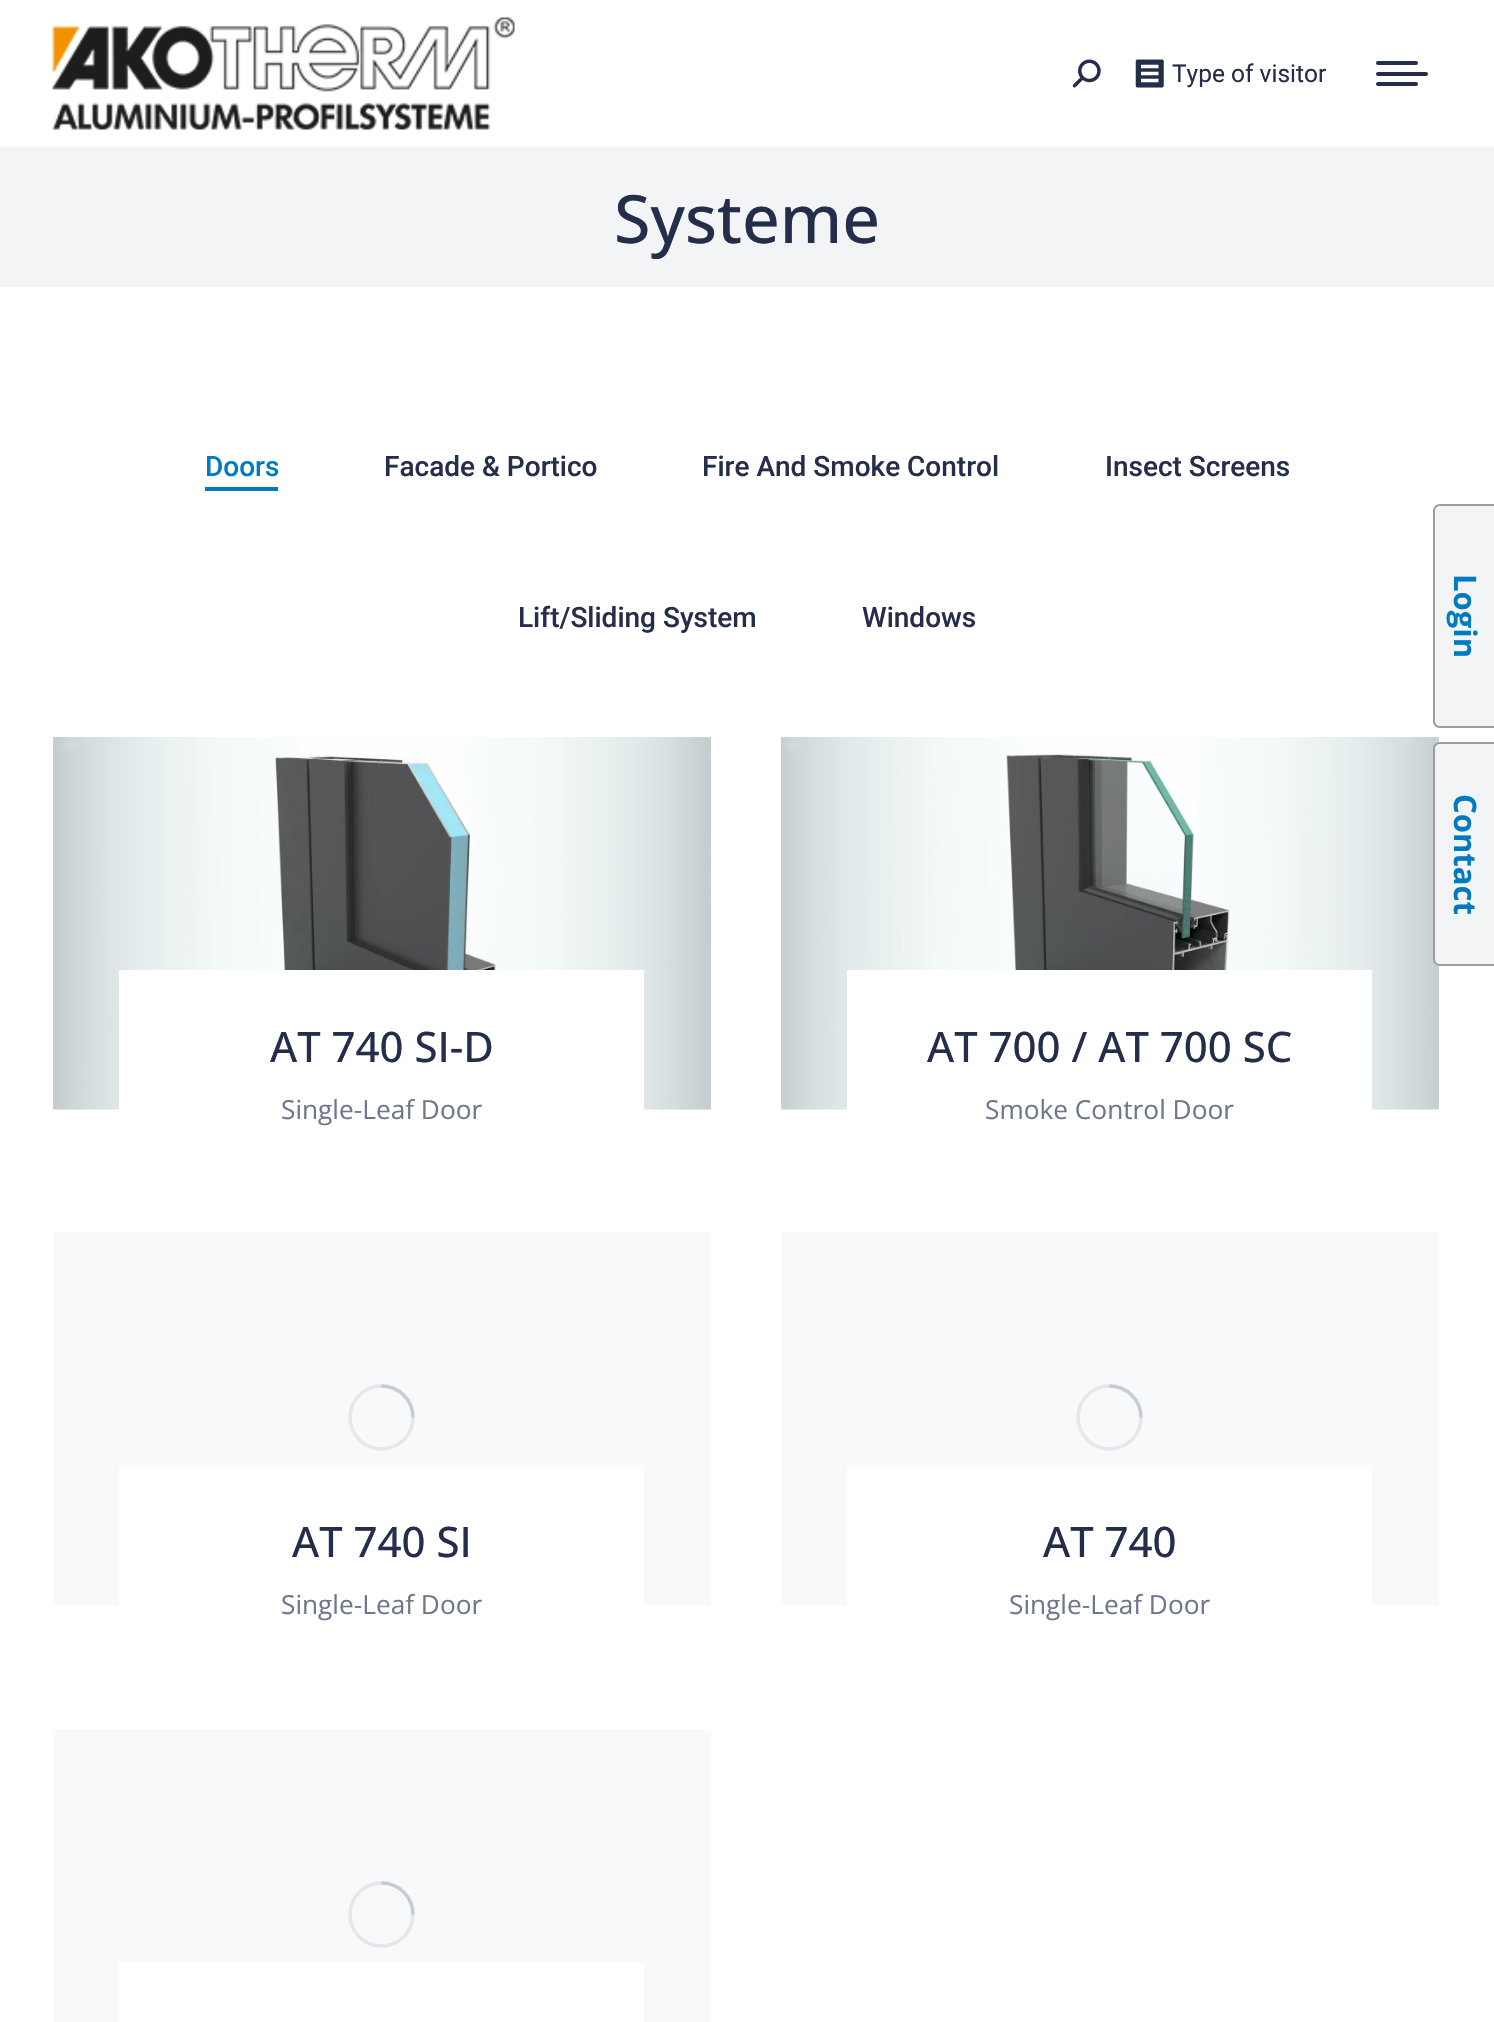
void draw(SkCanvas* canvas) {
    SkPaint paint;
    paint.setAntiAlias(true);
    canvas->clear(0xFFFFFFFF);
    canvas->drawImageRect(SkImages::DeferredFromEncodedData(SkData::MakeFromFileName("img1.png")), SkRect::MakeXYWH(52, 17, 463, 113), SkSamplingOptions());
    canvas->drawImageRect(SkImages::DeferredFromEncodedData(SkData::MakeFromFileName("img2.png")), SkRect::MakeXYWH(1072, 59, 29, 29), SkSamplingOptions());
    canvas->drawImageRect(SkImages::DeferredFromEncodedData(SkData::MakeFromFileName("img3.png")), SkRect::MakeXYWH(1135, 59, 29, 29), SkSamplingOptions());
    SkFont font1(fontMgr->matchFamilyStyle("Roboto", SkFontStyle::Normal()), 24.5f);
    font1.setSubpixel(true);
    paint.setColor(0xFF242D4A);
    canvas->drawString("Type of visitor", 1172, 82, font1, paint);
    canvas->drawRoundRect(SkRect::MakeXYWH(1376, 61, 42, 4), 2, 2, paint);
    canvas->drawRoundRect(SkRect::MakeXYWH(1376, 72, 52, 4), 2, 2, paint);
    canvas->drawRoundRect(SkRect::MakeXYWH(1376, 82, 42, 4), 2, 2, paint);
    paint.setColor(0xFFF2F4F6);
    canvas->drawRect(SkRect::MakeXYWH(0, 147, 1494, 140), paint);
    SkFont font2(fontMgr->matchFamilyStyle("Open Sans", SkFontStyle(500, SkFontStyle::kNormal_Width, SkFontStyle::kUpright_Slant)), 66.5f);
    font2.setSubpixel(true);
    paint.setColor(0xFF242D4A);
    canvas->drawString("Systeme", 614, 243, font2, paint);
    SkFont font3(fontMgr->matchFamilyStyle("Roboto", SkFontStyle(500, SkFontStyle::kNormal_Width, SkFontStyle::kUpright_Slant)), 28);
    font3.setSubpixel(true);
    paint.setColor(0xFF007BC2);
    canvas->drawString("Doors", 205, 476, font3, paint);
    canvas->drawRect(SkRect::MakeXYWH(205, 487, 73, 4), paint);
    paint.setColor(0xFF242D4A);
    canvas->drawString("Facade & Portico", 384, 476, font3, paint);
    canvas->drawString("Fire And Smoke Control", 702, 476, font3, paint);
    canvas->drawString("Insect Screens", 1105, 476, font3, paint);
    canvas->drawString("Lift/Sliding System", 518, 627, font3, paint);
    canvas->drawString("Windows", 862, 627, font3, paint);
    paint.setColor(0xFFF8F9FA);
    canvas->drawRect(SkRect::MakeXYWH(53, 1109, 658, 1), paint);
    canvas->drawImageRect(SkImages::DeferredFromEncodedData(SkData::MakeFromFileName("img4.png")), SkRect::MakeXYWH(53, 737, 658, 373), SkSamplingOptions());
    paint.setColor(0xFFFFFFFF);
    canvas->drawRect(SkRect::MakeXYWH(119, 970, 525, 140), paint);
    SkFont font4(fontMgr->matchFamilyStyle("Open Sans", SkFontStyle(500, SkFontStyle::kNormal_Width, SkFontStyle::kUpright_Slant)), 42);
    font4.setSubpixel(true);
    paint.setColor(0xFF242D4A);
    canvas->drawString("AT 740 SI-D", 270, 1062, font4, paint);
    SkFont font5(fontMgr->matchFamilyStyle("Open Sans", SkFontStyle::Normal()), 26.25f);
    font5.setSubpixel(true);
    paint.setColor(0xFF6E778A);
    canvas->drawString("Single-Leaf Door", 281, 1119, font5, paint);
    paint.setColor(0xFFF8F9FA);
    canvas->drawRect(SkRect::MakeXYWH(781, 1109, 658, 1), paint);
    canvas->drawImageRect(SkImages::DeferredFromEncodedData(SkData::MakeFromFileName("img5.png")), SkRect::MakeXYWH(781, 737, 658, 373), SkSamplingOptions());
    paint.setColor(0xFFFFFFFF);
    canvas->drawRect(SkRect::MakeXYWH(847, 970, 525, 140), paint);
    paint.setColor(0xFF242D4A);
    canvas->drawString("AT 700 / AT 700 SC", 927, 1062, font4, paint);
    paint.setColor(0xFF6E778A);
    canvas->drawString("Smoke Control Door", 985, 1119, font5, paint);
    paint.setColor(0xFFF8F9FA);
    canvas->drawRect(SkRect::MakeXYWH(53, 1232, 658, 373), paint);
    paint.setStyle(SkPaint::kStroke_Style);
    paint.setStrokeWidth(3.5f);
    paint.setColor(0xFFE5E7EB);
    canvas->drawCircle(381.5f, 1417.5f, 31.5f, paint);
    paint.setColor(0x406E778A);
    canvas->drawPath(SkPathBuilder().moveTo(413, 1417.5f).cubicTo(413, 1400, 399, 1386, 381.5f, 1386).detach(), paint);
    paint.setStyle(SkPaint::kFill_Style);
    paint.setColor(0xFFFFFFFF);
    canvas->drawRect(SkRect::MakeXYWH(119, 1465, 525, 140), paint);
    paint.setColor(0xFF242D4A);
    canvas->drawString("AT 740 SI", 292, 1557, font4, paint);
    paint.setColor(0xFF6E778A);
    canvas->drawString("Single-Leaf Door", 281, 1614, font5, paint);
    paint.setColor(0xFFF8F9FA);
    canvas->drawRect(SkRect::MakeXYWH(781, 1232, 658, 373), paint);
    paint.setStyle(SkPaint::kStroke_Style);
    paint.setColor(0xFFE5E7EB);
    canvas->drawCircle(1109.5f, 1417.5f, 31.5f, paint);
    paint.setColor(0x406E778A);
    canvas->drawPath(SkPathBuilder().moveTo(1141, 1417.5f).cubicTo(1141, 1400, 1127, 1386, 1109.5f, 1386).detach(), paint);
    paint.setStyle(SkPaint::kFill_Style);
    paint.setColor(0xFFFFFFFF);
    canvas->drawRect(SkRect::MakeXYWH(847, 1465, 525, 140), paint);
    paint.setColor(0xFF242D4A);
    canvas->drawString("AT 740", 1043, 1557, font4, paint);
    paint.setColor(0xFF6E778A);
    canvas->drawString("Single-Leaf Door", 1009, 1614, font5, paint);
    paint.setColor(0xFFF8F9FA);
    canvas->drawRect(SkRect::MakeXYWH(53, 1729, 658, 293), paint);
    paint.setStyle(SkPaint::kStroke_Style);
    paint.setColor(0xFFE5E7EB);
    canvas->drawCircle(381.5f, 1914.5f, 31.5f, paint);
    paint.setColor(0x406E778A);
    canvas->drawPath(SkPathBuilder().moveTo(413, 1914.5f).cubicTo(413, 1897, 399, 1883, 381.5f, 1883).detach(), paint);
    paint.setStyle(SkPaint::kFill_Style);
    paint.setColor(0xFFFFFFFF);
    canvas->drawRect(SkRect::MakeXYWH(119, 1962, 525, 60), paint);
    paint.setColor(0xFFF2F4F6);
    canvas->drawPath(SkPathBuilder().moveTo(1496, 504).lineTo(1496, 728).lineTo(1440, 728).cubicTo(1436, 728, 1433, 725, 1433, 721).lineTo(1433, 511).cubicTo(1433, 507, 1436, 504, 1440, 504).close().detach(), paint);
    paint.setColor(0x63121212);
    canvas->drawPath(SkPathBuilder(SkPathFillType::kEvenOdd).moveTo(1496, 504).lineTo(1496, 728).lineTo(1440, 728).cubicTo(1436, 728, 1433, 725, 1433, 721).lineTo(1433, 511).cubicTo(1433, 507, 1436, 504, 1440, 504).close().moveTo(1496, 506).lineTo(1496, 726).lineTo(1440, 726).cubicTo(1437, 726, 1435, 724, 1435, 721).lineTo(1435, 511).cubicTo(1435, 508, 1437, 506, 1440, 506).close().detach(), paint);
    SkFont font6(fontMgr->matchFamilyStyle("Open Sans", SkFontStyle::Bold()), 31);
    font6.setSubpixel(true);
    paint.setColor(0xFF007BC2);
    canvas->save();
    canvas->rotate(90, 1454, 574);
    canvas->drawString("Login", 1454, 574, font6, paint);
    canvas->restore();
    paint.setColor(0xFFF2F4F6);
    canvas->drawPath(SkPathBuilder().moveTo(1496, 742).lineTo(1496, 966).lineTo(1440, 966).cubicTo(1436, 966, 1433, 963, 1433, 959).lineTo(1433, 749).cubicTo(1433, 745, 1436, 742, 1440, 742).close().detach(), paint);
    paint.setColor(0x63121212);
    canvas->drawPath(SkPathBuilder(SkPathFillType::kEvenOdd).moveTo(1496, 742).lineTo(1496, 966).lineTo(1440, 966).cubicTo(1436, 966, 1433, 963, 1433, 959).lineTo(1433, 749).cubicTo(1433, 745, 1436, 742, 1440, 742).close().moveTo(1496, 744).lineTo(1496, 964).lineTo(1440, 964).cubicTo(1437, 964, 1435, 962, 1435, 959).lineTo(1435, 749).cubicTo(1435, 746, 1437, 744, 1440, 744).close().detach(), paint);
    paint.setColor(0xFF007BC2);
    canvas->save();
    canvas->rotate(90, 1454, 794);
    canvas->drawString("Contact", 1454, 794, font6, paint);
    canvas->restore();
}
